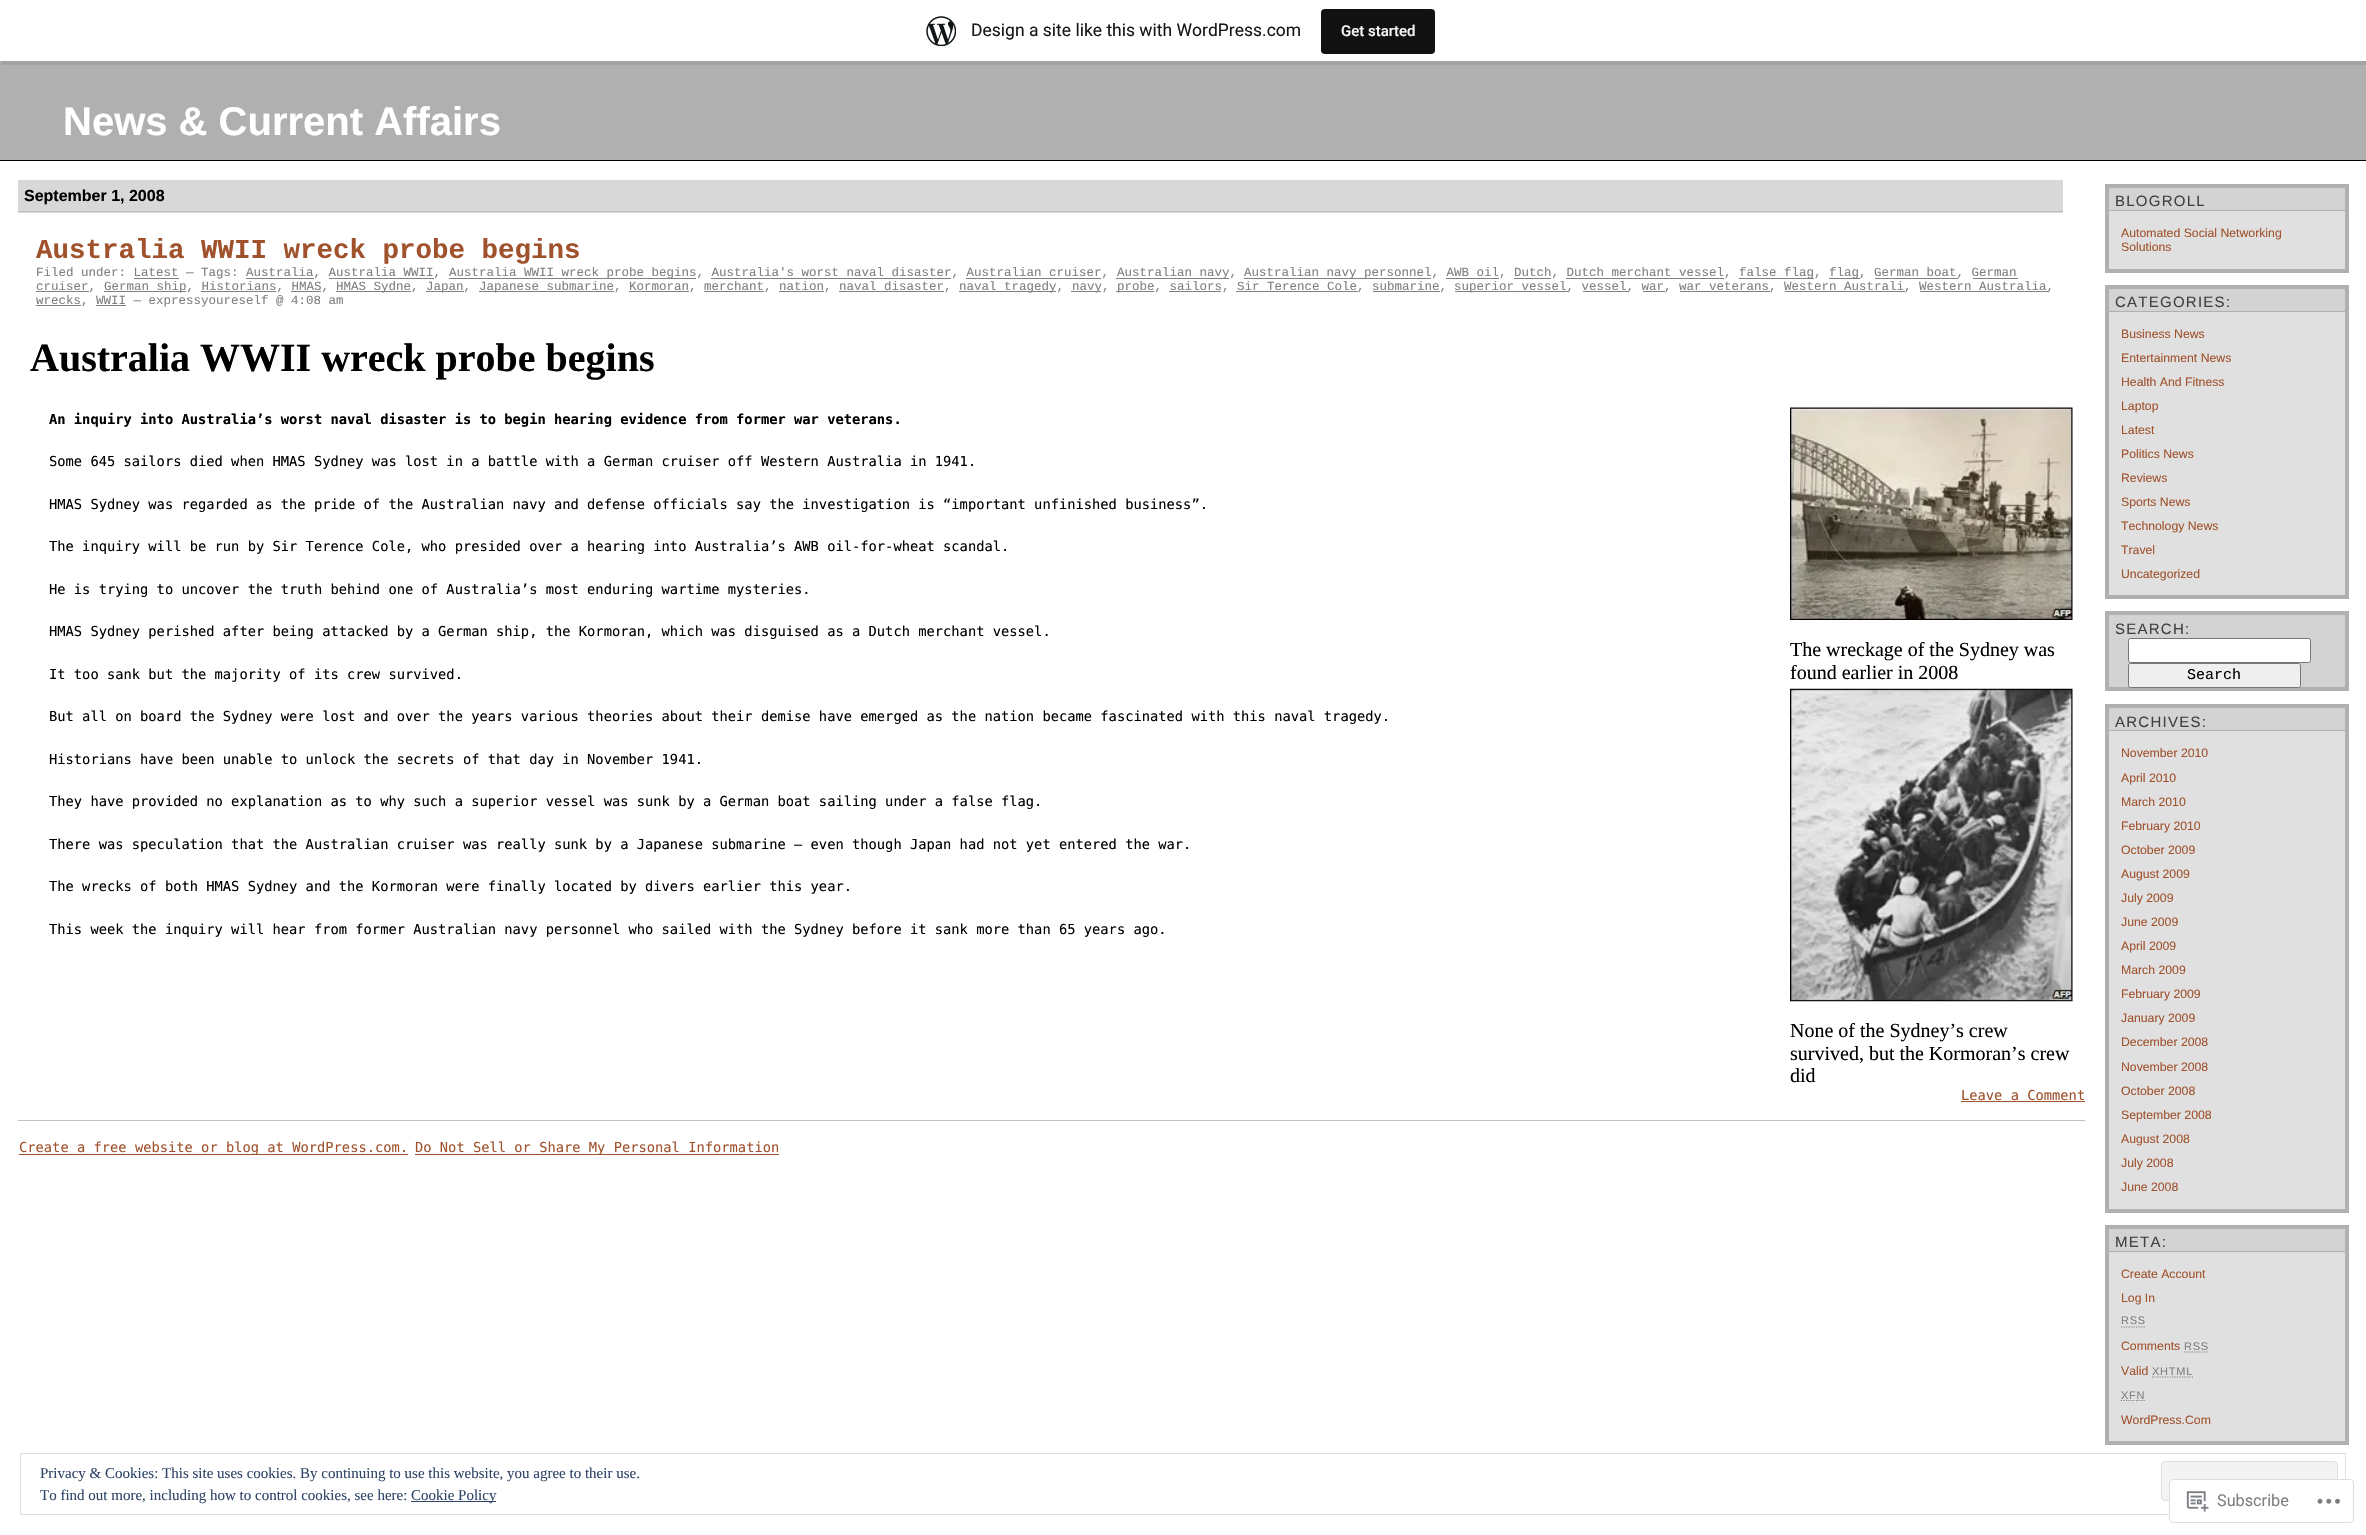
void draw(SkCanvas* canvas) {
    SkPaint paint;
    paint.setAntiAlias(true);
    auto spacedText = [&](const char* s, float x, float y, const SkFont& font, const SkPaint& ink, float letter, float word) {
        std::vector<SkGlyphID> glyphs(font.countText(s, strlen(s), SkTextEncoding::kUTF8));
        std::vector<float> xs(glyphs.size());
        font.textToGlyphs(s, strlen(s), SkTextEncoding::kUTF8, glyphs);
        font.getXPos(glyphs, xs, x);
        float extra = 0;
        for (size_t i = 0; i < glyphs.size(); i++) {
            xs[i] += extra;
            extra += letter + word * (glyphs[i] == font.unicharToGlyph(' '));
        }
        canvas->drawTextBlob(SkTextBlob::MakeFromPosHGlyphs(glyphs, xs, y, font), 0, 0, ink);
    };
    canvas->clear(0xFFFFFFFF);
    paint.setColor(0xFFB0B0B0);
    canvas->drawRect(SkRect::MakeXYWH(0, 61, 2366, 99), paint);
    paint.setColor(0x14000000);
    canvas->drawPath(SkPathBuilder().moveTo(1, 61).lineTo(1, 65).lineTo(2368, 65).lineTo(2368, 4).lineTo(2366, 4).lineTo(2366, 61).close().detach(), paint);
    canvas->drawImageRect(SkImages::DeferredFromEncodedData(SkData::MakeFromFileName("img1.png")), SkRect::MakeXYWH(926, 16, 30, 30), SkSamplingOptions());
    SkFont font1(fontMgr->matchFamilyStyle("Roboto", SkFontStyle::Normal()), 17.5f);
    font1.setSubpixel(true);
    paint.setColor(0xFF171717);
    canvas->drawString("Design a site like this with WordPress.com", 971, 36, font1, paint);
    paint.setColor(0xFF111111);
    canvas->drawRoundRect(SkRect::MakeXYWH(1321, 9, 114, 45), 4, 4, paint);
    SkFont font2(fontMgr->matchFamilyStyle("Roboto", SkFontStyle(500, SkFontStyle::kNormal_Width, SkFontStyle::kUpright_Slant)), 15);
    font2.setSubpixel(true);
    paint.setColor(0xFFF6F7F7);
    canvas->drawString("Get started", 1341, 36, font2, paint);
    paint.setColor(0xFF000000);
    canvas->drawRect(SkRect::MakeXYWH(0, 160, 2366, 1), paint);
    SkFont font3(fontMgr->matchFamilyStyle("Liberation Sans", SkFontStyle::Bold()), 40);
    font3.setSubpixel(true);
    paint.setColor(0xFFFFFFFF);
    canvas->drawString("News & Current Affairs", 63, 135, font3, paint);
    paint.setColor(0xFFD8D8D8);
    canvas->drawRect(SkRect::MakeXYWH(18, 180, 2045, 33), paint);
    paint.setColor(0xFFC0C0C0);
    canvas->drawRect(SkRect::MakeXYWH(18, 211, 2045, 1), paint);
    SkFont font4(fontMgr->matchFamilyStyle("Liberation Sans", SkFontStyle::Bold()), 16);
    font4.setSubpixel(true);
    paint.setColor(0xFF000000);
    canvas->drawString("September 1, 2008", 24, 201, font4, paint);
    SkFont font5(fontMgr->matchFamilyStyle("Liberation Mono", SkFontStyle::Bold()), 27.5f);
    font5.setSubpixel(true);
    paint.setColor(0xFFA0522D);
    canvas->drawString("Australia WWII wreck probe begins", 36, 258, font5, paint);
    SkFont font6(fontMgr->matchFamilyStyle("Liberation Mono", SkFontStyle::Normal()), 12.5f);
    font6.setSubpixel(true);
    paint.setColor(0xFF808080);
    canvas->drawString("Filed under: Latest — Tags: Australia, Australia WWII,", 36, 276, font6, paint);
    canvas->drawRect(SkRect::MakeXYWH(449, 278, 247, 1), paint);
    canvas->drawString("Australia WWII wreck probe begins, Australia's worst naval disaster, Australian cruiser,", 449, 276, font6, paint);
    canvas->drawRect(SkRect::MakeXYWH(1116, 278, 113, 1), paint);
    canvas->drawString("Australian navy,", 1117, 276, font6, paint);
    canvas->drawRect(SkRect::MakeXYWH(1244, 278, 187, 1), paint);
    canvas->drawString("Australian navy personnel, AWB oil, Dutch, Dutch merchant vessel,", 1244, 276, font6, paint);
    canvas->drawRect(SkRect::MakeXYWH(1739, 278, 75, 1), paint);
    canvas->drawString("false flag,", 1739, 276, font6, paint);
    canvas->drawRect(SkRect::MakeXYWH(1829, 278, 31, 1), paint);
    canvas->drawString("flag, German boat, German", 1829, 276, font6, paint);
    canvas->drawRect(SkRect::MakeXYWH(134, 278, 45, 1), paint);
    canvas->drawRect(SkRect::MakeXYWH(246, 278, 68, 1), paint);
    canvas->drawRect(SkRect::MakeXYWH(329, 278, 105, 1), paint);
    canvas->drawRect(SkRect::MakeXYWH(711, 278, 240, 1), paint);
    canvas->drawRect(SkRect::MakeXYWH(966, 278, 135, 1), paint);
    canvas->drawRect(SkRect::MakeXYWH(1446, 278, 53, 1), paint);
    canvas->drawRect(SkRect::MakeXYWH(1514, 278, 37, 1), paint);
    canvas->drawRect(SkRect::MakeXYWH(1566, 278, 158, 1), paint);
    canvas->drawRect(SkRect::MakeXYWH(1875, 278, 83, 1), paint);
    canvas->drawRect(SkRect::MakeXYWH(36, 291, 53, 1), paint);
    canvas->drawString("cruiser,", 36, 290, font6, paint);
    canvas->drawRect(SkRect::MakeXYWH(1973, 278, 45, 1), paint);
    canvas->drawRect(SkRect::MakeXYWH(104, 291, 82, 1), paint);
    canvas->drawString("German ship, Historians, HMAS,", 104, 290, font6, paint);
    canvas->drawRect(SkRect::MakeXYWH(336, 291, 75, 1), paint);
    canvas->drawString("HMAS Sydne,", 336, 290, font6, paint);
    canvas->drawRect(SkRect::MakeXYWH(426, 291, 38, 1), paint);
    canvas->drawString("Japan,", 426, 290, font6, paint);
    canvas->drawRect(SkRect::MakeXYWH(479, 291, 135, 1), paint);
    canvas->drawString("Japanese submarine, Kormoran, merchant, nation, naval disaster,", 479, 290, font6, paint);
    canvas->drawRect(SkRect::MakeXYWH(959, 291, 97, 1), paint);
    canvas->drawString("naval tragedy,", 959, 290, font6, paint);
    canvas->drawRect(SkRect::MakeXYWH(1071, 291, 30, 1), paint);
    canvas->drawString("navy,", 1072, 290, font6, paint);
    canvas->drawRect(SkRect::MakeXYWH(1116, 291, 38, 1), paint);
    canvas->drawString("probe, sailors, Sir Terence Cole, submarine,", 1117, 290, font6, paint);
    canvas->drawRect(SkRect::MakeXYWH(1455, 291, 113, 1), paint);
    canvas->drawString("superior vessel, vessel, war, war veterans, Western Australi, Western Australia,", 1454, 290, font6, paint);
    canvas->drawRect(SkRect::MakeXYWH(201, 291, 75, 1), paint);
    canvas->drawRect(SkRect::MakeXYWH(291, 291, 30, 1), paint);
    canvas->drawRect(SkRect::MakeXYWH(629, 291, 60, 1), paint);
    canvas->drawRect(SkRect::MakeXYWH(704, 291, 60, 1), paint);
    canvas->drawRect(SkRect::MakeXYWH(779, 291, 45, 1), paint);
    canvas->drawRect(SkRect::MakeXYWH(839, 291, 105, 1), paint);
    canvas->drawRect(SkRect::MakeXYWH(1169, 291, 52, 1), paint);
    canvas->drawRect(SkRect::MakeXYWH(1236, 291, 122, 1), paint);
    canvas->drawRect(SkRect::MakeXYWH(1373, 291, 67, 1), paint);
    canvas->drawRect(SkRect::MakeXYWH(1583, 291, 45, 1), paint);
    canvas->drawRect(SkRect::MakeXYWH(1643, 291, 22, 1), paint);
    canvas->drawRect(SkRect::MakeXYWH(1680, 291, 90, 1), paint);
    canvas->drawRect(SkRect::MakeXYWH(1785, 291, 120, 1), paint);
    canvas->drawRect(SkRect::MakeXYWH(1920, 291, 128, 1), paint);
    canvas->drawRect(SkRect::MakeXYWH(36, 305, 45, 1), paint);
    canvas->drawString("wrecks, WWII — expressyoureself @ 4:08 am", 36, 304, font6, paint);
    canvas->drawRect(SkRect::MakeXYWH(96, 305, 30, 1), paint);
    SkFont font7(fontMgr->matchFamilyStyle("Liberation Serif", SkFontStyle::Bold()), 40);
    font7.setSubpixel(true);
    paint.setColor(0xFF000000);
    canvas->drawString("Australia WWII wreck probe begins", 30, 371, font7, paint);
    SkFont font8(fontMgr->matchFamilyStyle("DejaVu Sans Mono", SkFontStyle::Bold()), 13.75f);
    font8.setSubpixel(true);
    canvas->drawString("An inquiry into Australia’s worst naval disaster is to begin hearing evidence from former war veterans.", 49, 424, font8, paint);
    SkFont font9(fontMgr->matchFamilyStyle("DejaVu Sans Mono", SkFontStyle::Normal()), 13.75f);
    font9.setSubpixel(true);
    canvas->drawString("Some 645 sailors died when HMAS Sydney was lost in a battle with a German cruiser off Western Australia in 1941.", 49, 466, font9, paint);
    canvas->drawString("HMAS Sydney was regarded as the pride of the Australian navy and defense officials say the investigation is “important unfinished business”.", 49, 509, font9, paint);
    canvas->drawString("The inquiry will be run by Sir Terence Cole, who presided over a hearing into Australia’s AWB oil-for-wheat scandal.", 49, 551, font9, paint);
    canvas->drawString("He is trying to uncover the truth behind one of Australia’s most enduring wartime mysteries.", 49, 594, font9, paint);
    canvas->drawString("HMAS Sydney perished after being attacked by a German ship, the Kormoran, which was disguised as a Dutch merchant vessel.", 49, 636, font9, paint);
    canvas->drawString("It too sank but the majority of its crew survived.", 49, 679, font9, paint);
    canvas->drawImageRect(SkImages::DeferredFromEncodedData(SkData::MakeFromFileName("img2.png")), SkRect::MakeXYWH(1790, 407, 283, 213), SkSamplingOptions());
    SkFont font10(fontMgr->matchFamilyStyle("Liberation Serif", SkFontStyle::Normal()), 20);
    font10.setSubpixel(true);
    canvas->drawString("The wreckage of the Sydney was", 1790, 656, font10, paint);
    canvas->drawString("found earlier in 2008", 1790, 679, font10, paint);
    canvas->drawString("But all on board the Sydney were lost and over the years various theories about their demise have emerged as the nation became fascinated with this naval tragedy.", 49, 721, font9, paint);
    canvas->drawString("Historians have been unable to unlock the secrets of that day in November 1941.", 49, 764, font9, paint);
    canvas->drawString("They have provided no explanation as to why such a superior vessel was sunk by a German boat sailing under a false flag.", 49, 806, font9, paint);
    canvas->drawString("There was speculation that the Australian cruiser was really sunk by a Japanese submarine – even though Japan had not yet entered the war.", 49, 849, font9, paint);
    canvas->drawString("The wrecks of both HMAS Sydney and the Kormoran were finally located by divers earlier this year.", 49, 891, font9, paint);
    canvas->drawString("This week the inquiry will hear from former Australian navy personnel who sailed with the Sydney before it sank more than 65 years ago.", 49, 934, font9, paint);
    canvas->drawImageRect(SkImages::DeferredFromEncodedData(SkData::MakeFromFileName("img3.png")), SkRect::MakeXYWH(1790, 688, 283, 314), SkSamplingOptions());
    canvas->drawString("None of the Sydney’s crew", 1790, 1037, font10, paint);
    canvas->drawString("survived, but the Kormoran’s crew", 1790, 1060, font10, paint);
    canvas->drawString("did", 1790, 1082, font10, paint);
    paint.setColor(0xFFC0C0C0);
    canvas->drawRect(SkRect::MakeXYWH(18, 1120, 2067, 1), paint);
    paint.setColor(0xFFA0522D);
    canvas->drawString("Leave a Comment", 1961, 1100, font9, paint);
    canvas->drawRect(SkRect::MakeXYWH(1961, 1101, 124, 1), paint);
    paint.setColor(0xFFD3D3D3);
    canvas->drawRect(SkRect::MakeXYWH(2109, 188, 236, 22), paint);
    paint.setStyle(SkPaint::kStroke_Style);
    paint.setStrokeWidth(4);
    paint.setColor(0xFFB0B0B0);
    canvas->drawRect(SkRect::MakeXYWH(2107, 186, 240, 85), paint);
    SkFont font11(fontMgr->matchFamilyStyle("Liberation Sans", SkFontStyle::Normal()), 15);
    font11.setSubpixel(true);
    paint.setStyle(SkPaint::kFill_Style);
    paint.setColor(0xFF404040);
    spacedText("BLOGROLL", 2115, 206, font11, paint, 1.25f, 0);
    paint.setColor(0xFFE0E0E0);
    canvas->drawRect(SkRect::MakeXYWH(2109, 211, 236, 58), paint);
    paint.setColor(0xFFB0B0B0);
    canvas->drawRect(SkRect::MakeXYWH(2109, 210, 236, 1), paint);
    SkFont font12(fontMgr->matchFamilyStyle("Liberation Sans", SkFontStyle::Normal()), 12.25f);
    font12.setSubpixel(true);
    paint.setColor(0xFFA0522D);
    canvas->drawString("Automated Social Networking", 2121, 237, font12, paint);
    canvas->drawString("Solutions", 2121, 251, font12, paint);
    paint.setColor(0xFFD3D3D3);
    canvas->drawRect(SkRect::MakeXYWH(2109, 289, 236, 22), paint);
    paint.setStyle(SkPaint::kStroke_Style);
    paint.setColor(0xFFB0B0B0);
    canvas->drawRect(SkRect::MakeXYWH(2107, 287, 240, 310), paint);
    paint.setStyle(SkPaint::kFill_Style);
    paint.setColor(0xFF404040);
    spacedText("CATEGORIES:", 2115, 307, font11, paint, 1.25f, 0);
    paint.setColor(0xFFE0E0E0);
    canvas->drawRect(SkRect::MakeXYWH(2109, 312, 236, 283), paint);
    paint.setColor(0xFFB0B0B0);
    canvas->drawRect(SkRect::MakeXYWH(2109, 311, 236, 1), paint);
    paint.setColor(0xFFA0522D);
    canvas->drawString("Business News", 2121, 338, font12, paint);
    canvas->drawString("Entertainment News", 2121, 362, font12, paint);
    canvas->drawString("Health And Fitness", 2121, 386, font12, paint);
    canvas->drawString("Laptop", 2121, 410, font12, paint);
    canvas->drawString("Latest", 2121, 434, font12, paint);
    canvas->drawString("Politics News", 2121, 458, font12, paint);
    canvas->drawString("Reviews", 2121, 482, font12, paint);
    canvas->drawString("Sports News", 2121, 506, font12, paint);
    canvas->drawString("Technology News", 2121, 530, font12, paint);
    canvas->drawString("Travel", 2121, 554, font12, paint);
    canvas->drawString("Uncategorized", 2121, 578, font12, paint);
    paint.setColor(0xFFD3D3D3);
    canvas->drawRect(SkRect::MakeXYWH(2107, 613, 240, 76), paint);
    paint.setStyle(SkPaint::kStroke_Style);
    paint.setColor(0xFFB0B0B0);
    canvas->drawRect(SkRect::MakeXYWH(2107, 613, 240, 76), paint);
    paint.setStyle(SkPaint::kFill_Style);
    paint.setColor(0xFF404040);
    spacedText("SEARCH:", 2115, 634, font11, paint, 1.25f, 0);
    paint.setColor(0xFFFFFFFF);
    canvas->drawRoundRect(SkRect::MakeXYWH(2128.5f, 638.5f, 182, 24), 2, 2, paint);
    paint.setStyle(SkPaint::kStroke_Style);
    paint.setStrokeWidth(1);
    paint.setColor(0xFF767676);
    canvas->drawRoundRect(SkRect::MakeXYWH(2128.5f, 638.5f, 182, 24), 2, 2, paint);
    paint.setStyle(SkPaint::kFill_Style);
    paint.setColor(0xFFEFEFEF);
    canvas->drawRoundRect(SkRect::MakeXYWH(2128.5f, 663.5f, 172, 24), 2, 2, paint);
    paint.setStyle(SkPaint::kStroke_Style);
    paint.setColor(0xFF767676);
    canvas->drawRoundRect(SkRect::MakeXYWH(2128.5f, 663.5f, 172, 24), 2, 2, paint);
    SkFont font13(fontMgr->matchFamilyStyle("Liberation Mono", SkFontStyle::Normal()), 15);
    font13.setSubpixel(true);
    paint.setStyle(SkPaint::kFill_Style);
    paint.setColor(0xFF000000);
    canvas->drawString("Search", 2187, 679, font13, paint);
    paint.setColor(0xFFD3D3D3);
    canvas->drawRect(SkRect::MakeXYWH(2109, 708, 236, 22), paint);
    paint.setStyle(SkPaint::kStroke_Style);
    paint.setStrokeWidth(4);
    paint.setColor(0xFFB0B0B0);
    canvas->drawRect(SkRect::MakeXYWH(2107, 706, 240, 505), paint);
    paint.setStyle(SkPaint::kFill_Style);
    paint.setColor(0xFF404040);
    spacedText("ARCHIVES:", 2115, 727, font11, paint, 1.25f, 0);
    paint.setColor(0xFFE0E0E0);
    canvas->drawRect(SkRect::MakeXYWH(2109, 731, 236, 478), paint);
    paint.setColor(0xFFB0B0B0);
    canvas->drawRect(SkRect::MakeXYWH(2109, 730, 236, 1), paint);
    paint.setColor(0xFFA0522D);
    canvas->drawString("November 2010", 2121, 757, font12, paint);
    canvas->drawString("April 2010", 2121, 782, font12, paint);
    canvas->drawString("March 2010", 2121, 806, font12, paint);
    canvas->drawString("February 2010", 2121, 830, font12, paint);
    canvas->drawString("October 2009", 2121, 854, font12, paint);
    canvas->drawString("August 2009", 2121, 878, font12, paint);
    canvas->drawString("July 2009", 2121, 902, font12, paint);
    canvas->drawString("June 2009", 2121, 926, font12, paint);
    canvas->drawString("April 2009", 2121, 950, font12, paint);
    canvas->drawString("March 2009", 2121, 974, font12, paint);
    canvas->drawString("February 2009", 2121, 998, font12, paint);
    canvas->drawString("January 2009", 2121, 1022, font12, paint);
    canvas->drawString("December 2008", 2121, 1046, font12, paint);
    canvas->drawString("November 2008", 2121, 1071, font12, paint);
    canvas->drawString("October 2008", 2121, 1095, font12, paint);
    canvas->drawString("September 2008", 2121, 1119, font12, paint);
    canvas->drawString("August 2008", 2121, 1143, font12, paint);
    canvas->drawString("July 2008", 2121, 1167, font12, paint);
    canvas->drawString("June 2008", 2121, 1191, font12, paint);
    paint.setColor(0xFFD3D3D3);
    canvas->drawRect(SkRect::MakeXYWH(2109, 1229, 236, 22), paint);
    paint.setStyle(SkPaint::kStroke_Style);
    paint.setColor(0xFFB0B0B0);
    canvas->drawRect(SkRect::MakeXYWH(2107, 1227, 240, 216), paint);
    paint.setStyle(SkPaint::kFill_Style);
    paint.setColor(0xFF404040);
    spacedText("META:", 2115, 1247, font11, paint, 1.25f, 0);
    paint.setColor(0xFFE0E0E0);
    canvas->drawRect(SkRect::MakeXYWH(2109, 1252, 236, 189), paint);
    paint.setColor(0xFFB0B0B0);
    canvas->drawRect(SkRect::MakeXYWH(2109, 1251, 236, 1), paint);
    paint.setColor(0xFFA0522D);
    canvas->drawString("Create Account", 2121, 1278, font12, paint);
    canvas->drawString("Log In", 2121, 1302, font12, paint);
    SkFont font14(fontMgr->matchFamilyStyle("Liberation Sans", SkFontStyle::Normal()), 11);
    font14.setSubpixel(true);
    paint.setColor(0xFF808080);
    spacedText("RSS", 2121, 1324, font14, paint, 0.75f, 0);
    paint.setStyle(SkPaint::kStroke_Style);
    paint.setStrokeWidth(1.2f);
    paint.setColor(0xFF828282);
    paint.setPathEffect(SkDashPathEffect::Make({{1.25f, 1.25f}}, 0));
    canvas->drawPath(SkPathBuilder().moveTo(2121, 1327).lineTo(2146, 1327).detach(), paint);
    paint.setPathEffect(nullptr);
    paint.setStyle(SkPaint::kFill_Style);
    paint.setColor(0xFFA0522D);
    canvas->drawString("Comments", 2121, 1350, font12, paint);
    paint.setColor(0xFF808080);
    spacedText("RSS", 2184, 1350, font14, paint, 0.75f, 0);
    paint.setStyle(SkPaint::kStroke_Style);
    paint.setColor(0xFF828282);
    paint.setPathEffect(SkDashPathEffect::Make({{1.25f, 1.25f}}, 0));
    canvas->drawPath(SkPathBuilder().moveTo(2184, 1352).lineTo(2209, 1352).detach(), paint);
    paint.setPathEffect(nullptr);
    paint.setStyle(SkPaint::kFill_Style);
    paint.setColor(0xFFA0522D);
    canvas->drawString("Valid", 2121, 1375, font12, paint);
    paint.setColor(0xFF808080);
    spacedText("XHTML", 2152, 1375, font14, paint, 0.75f, 0);
    paint.setStyle(SkPaint::kStroke_Style);
    paint.setColor(0xFF828282);
    paint.setPathEffect(SkDashPathEffect::Make({{1.25f, 1.25f}}, 0));
    canvas->drawPath(SkPathBuilder().moveTo(2152, 1377).lineTo(2193, 1377).detach(), paint);
    paint.setPathEffect(nullptr);
    paint.setStyle(SkPaint::kFill_Style);
    paint.setColor(0xFF808080);
    spacedText("XFN", 2121, 1399, font14, paint, 0.75f, 0);
    paint.setStyle(SkPaint::kStroke_Style);
    paint.setColor(0xFF828282);
    paint.setPathEffect(SkDashPathEffect::Make({{1.25f, 1.25f}}, 0));
    canvas->drawPath(SkPathBuilder().moveTo(2121, 1400.5f).lineTo(2145.5f, 1400.5f).detach(), paint);
    paint.setPathEffect(nullptr);
    paint.setStyle(SkPaint::kFill_Style);
    paint.setColor(0xFFA0522D);
    canvas->drawString("WordPress.Com", 2121, 1424, font12, paint);
    canvas->drawRect(SkRect::MakeXYWH(19, 1154, 389, 1), paint);
    canvas->drawString("Create a free website or blog at WordPress.com.", 19, 1152, font9, paint);
    canvas->drawRect(SkRect::MakeXYWH(415, 1154, 364, 1), paint);
    canvas->drawString("Do Not Sell or Share My Personal Information", 415, 1152, font9, paint);
    paint.setStyle(SkPaint::kStroke_Style);
    paint.setStrokeWidth(1);
    paint.setColor(0xFFDEDEDE);
    canvas->drawRect(SkRect::MakeXYWH(20.5f, 1453.5f, 2325, 61), paint);
    SkFont font15(fontMgr->matchFamilyStyle("Liberation Serif", SkFontStyle::Normal()), 15);
    font15.setSubpixel(true);
    paint.setStyle(SkPaint::kFill_Style);
    paint.setColor(0xFF2E4467);
    canvas->drawString("Privacy & Cookies: This site uses cookies. By continuing to use this website, you agree to their use.", 40, 1478, font15, paint);
    paint.setColor(0xFFF3F3F3);
    canvas->drawRoundRect(SkRect::MakeXYWH(2161.5f, 1461.5f, 176, 39), 3.5f, 3.5f, paint);
    paint.setStyle(SkPaint::kStroke_Style);
    paint.setColor(0xFFDEDEDE);
    canvas->drawRoundRect(SkRect::MakeXYWH(2161.5f, 1461.5f, 176, 39), 3.5f, 3.5f, paint);
    paint.setStyle(SkPaint::kFill_Style);
    paint.setColor(0xFF2E4467);
    canvas->drawString("To find out more, including how to control cookies, see here:", 40, 1500, font15, paint);
    canvas->drawRect(SkRect::MakeXYWH(411, 1501, 85, 1), paint);
    canvas->drawString("Cookie Policy", 411, 1500, font15, paint);
    paint.setColor(0xFAFFFFFF);
    canvas->drawRoundRect(SkRect::MakeXYWH(2169, 1479, 185, 44), 4, 4, paint);
    paint.setStyle(SkPaint::kStroke_Style);
    paint.setColor(0xFADCDCDE);
    canvas->drawRoundRect(SkRect::MakeXYWH(2169.5f, 1479.5f, 184, 43), 3.5f, 3.5f, paint);
    canvas->drawImageRect(SkImages::DeferredFromEncodedData(SkData::MakeFromFileName("img4.png")), SkRect::MakeXYWH(2186, 1491, 23, 21), SkSamplingOptions());
    SkFont font16(fontMgr->matchFamilyStyle("Roboto", SkFontStyle::Normal()), 16.25f);
    font16.setSubpixel(true);
    paint.setStyle(SkPaint::kFill_Style);
    paint.setColor(0xFF808080);
    canvas->drawString("Subscribe", 2217, 1506, font16, paint);
    canvas->drawImageRect(SkImages::DeferredFromEncodedData(SkData::MakeFromFileName("img5.png")), SkRect::MakeXYWH(2317, 1498, 23, 6), SkSamplingOptions());
}
